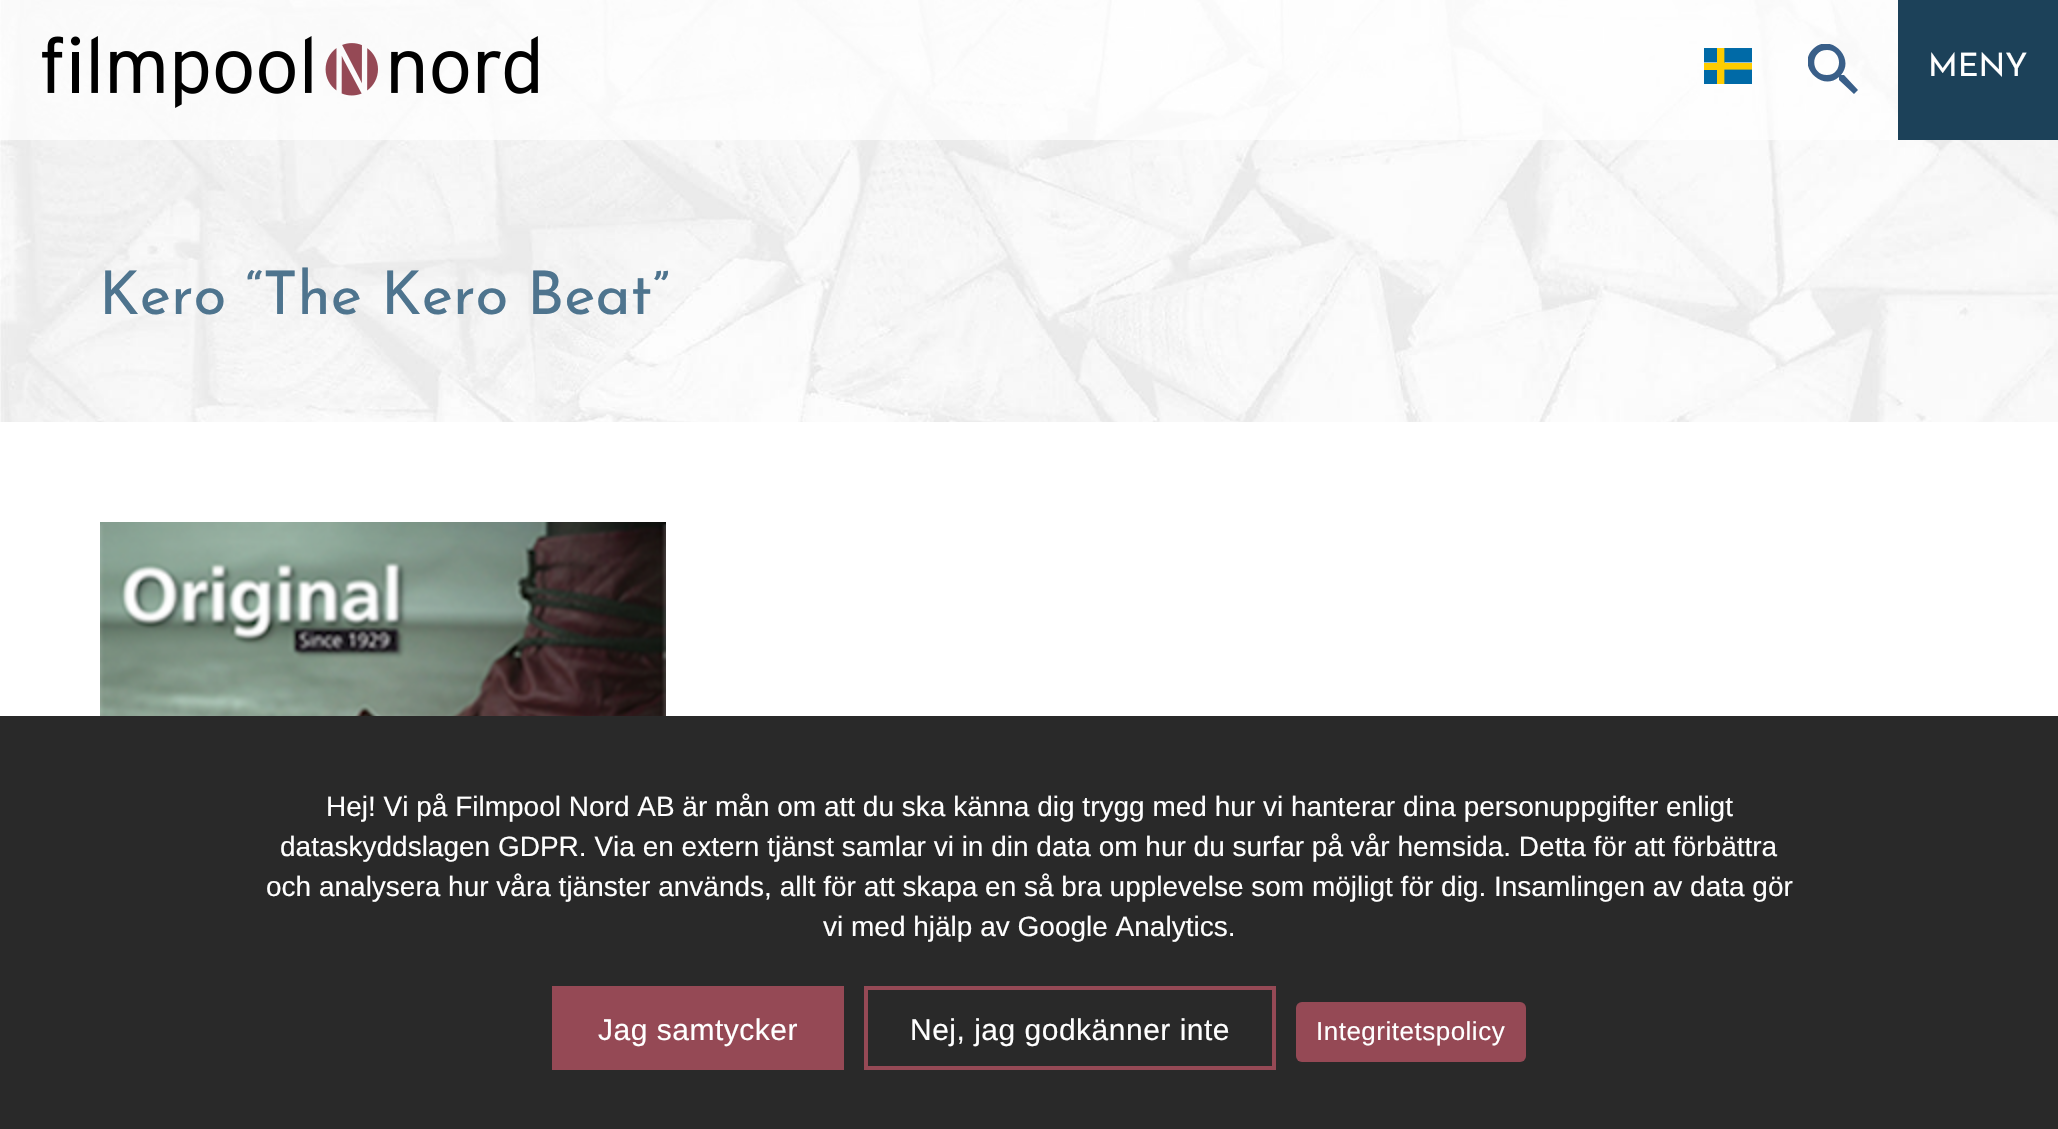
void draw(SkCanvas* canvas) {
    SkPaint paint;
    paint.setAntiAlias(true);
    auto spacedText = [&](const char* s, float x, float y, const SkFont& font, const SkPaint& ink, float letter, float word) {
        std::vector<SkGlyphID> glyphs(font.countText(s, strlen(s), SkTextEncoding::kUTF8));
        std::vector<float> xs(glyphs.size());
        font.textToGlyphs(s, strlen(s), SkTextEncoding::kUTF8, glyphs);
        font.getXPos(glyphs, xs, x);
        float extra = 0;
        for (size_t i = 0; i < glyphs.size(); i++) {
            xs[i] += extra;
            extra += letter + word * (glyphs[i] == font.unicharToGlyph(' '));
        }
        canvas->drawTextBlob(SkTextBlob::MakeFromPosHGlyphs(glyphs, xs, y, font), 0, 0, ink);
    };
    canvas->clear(0xFFFFFFFF);
    canvas->drawImageRect(SkImages::DeferredFromEncodedData(SkData::MakeFromFileName("img3.png")), SkRect::MakeXYWH(0, 0, 2058, 422), SkSamplingOptions());
    paint.setColor(0xB3FFFFFF);
    canvas->drawRect(SkRect::MakeXYWH(0, 0, 1898, 140), paint);
    canvas->drawImageRect(SkImages::DeferredFromEncodedData(SkData::MakeFromFileName("img1.png")), SkRect::MakeXYWH(42, 36, 496, 72), SkSamplingOptions());
    canvas->drawImageRect(SkImages::DeferredFromEncodedData(SkData::MakeFromFileName("img2.png")), SkRect::MakeXYWH(1704, 48, 48, 36), SkSamplingOptions());
    canvas->save();
    canvas->clipRect(SkRect::MakeXYWH(1808, 44, 50, 50));
    paint.setColor(0xFF395F89);
    canvas->drawPath(SkPathBuilder().moveTo(1844, 75).lineTo(1841, 75).cubicTo(1856, 58, 1830, 32, 1813, 49).cubicTo(1796, 66, 1822, 92, 1839, 77).lineTo(1839, 80).lineTo(1854, 94).lineTo(1858, 90).close().moveTo(1827, 75).cubicTo(1810, 75, 1810, 50, 1827, 50).cubicTo(1843, 50, 1843, 75, 1827, 75).close().detach(), paint);
    canvas->restore();
    paint.setColor(0xFF1C4159);
    canvas->drawRect(SkRect::MakeXYWH(1898, 0, 160, 140), paint);
    SkFont font1(fontMgr->matchFamilyStyle("Josefin Sans", SkFontStyle::Normal()), 32);
    font1.setSubpixel(true);
    paint.setColor(0xFFFFFFFF);
    canvas->drawString("MENY", 1928, 76, font1, paint);
    SkFont font2(fontMgr->matchFamilyStyle("Josefin Sans", SkFontStyle::Normal()), 60);
    font2.setSubpixel(true);
    paint.setColor(0xFF4E748E);
    canvas->drawString("Kero “The Kero Beat”", 99, 314, font2, paint);
    canvas->drawImageRect(SkImages::DeferredFromEncodedData(SkData::MakeFromFileName("img4.png")), SkRect::MakeXYWH(100, 522, 566, 194), SkSamplingOptions());
    paint.setColor(0xFF292929);
    canvas->drawRect(SkRect::MakeXYWH(0, 716, 2058, 413), paint);
    SkFont font3(fontMgr->matchFamilyStyle("Liberation Sans", SkFontStyle::Normal()), 28);
    font3.setSubpixel(true);
    paint.setColor(0xFFFFFFFF);
    canvas->drawString("Hej! Vi på Filmpool Nord AB är mån om att du ska känna dig trygg med hur vi hanterar dina personuppgifter enligt", 326, 816, font3, paint);
    canvas->drawString("dataskyddslagen GDPR. Via en extern tjänst samlar vi in din data om hur du surfar på vår hemsida. Detta för att förbättra", 280, 856, font3, paint);
    canvas->drawString("och analysera hur våra tjänster används, allt för att skapa en så bra upplevelse som möjligt för dig. Insamlingen av data gör", 266, 896, font3, paint);
    canvas->drawString("vi med hjälp av Google Analytics.", 823, 936, font3, paint);
    paint.setColor(0xFF954955);
    canvas->drawRect(SkRect::MakeXYWH(552, 986, 292, 84), paint);
    SkFont font4(fontMgr->matchFamilyStyle("Liberation Sans", SkFontStyle::Normal()), 30);
    font4.setSubpixel(true);
    paint.setColor(0xFFFFFFFF);
    spacedText("Jag samtycker", 598, 1040, font4, paint, 0.5f, 0);
    paint.setStyle(SkPaint::kStroke_Style);
    paint.setStrokeWidth(4);
    paint.setColor(0xFF954955);
    canvas->drawRect(SkRect::MakeXYWH(866, 988, 408, 80), paint);
    paint.setStyle(SkPaint::kFill_Style);
    paint.setColor(0xFFFFFFFF);
    spacedText("Nej, jag godkänner inte", 910, 1040, font4, paint, 0.5f, 0);
    paint.setColor(0xFF954955);
    canvas->drawRoundRect(SkRect::MakeXYWH(1296, 1002, 230, 60), 6, 6, paint);
    SkFont font5(fontMgr->matchFamilyStyle("Liberation Sans", SkFontStyle::Normal()), 26);
    font5.setSubpixel(true);
    paint.setColor(0xFFFFFFFF);
    spacedText("Integritetspolicy", 1316, 1040, font5, paint, 0.5f, 0);
}
